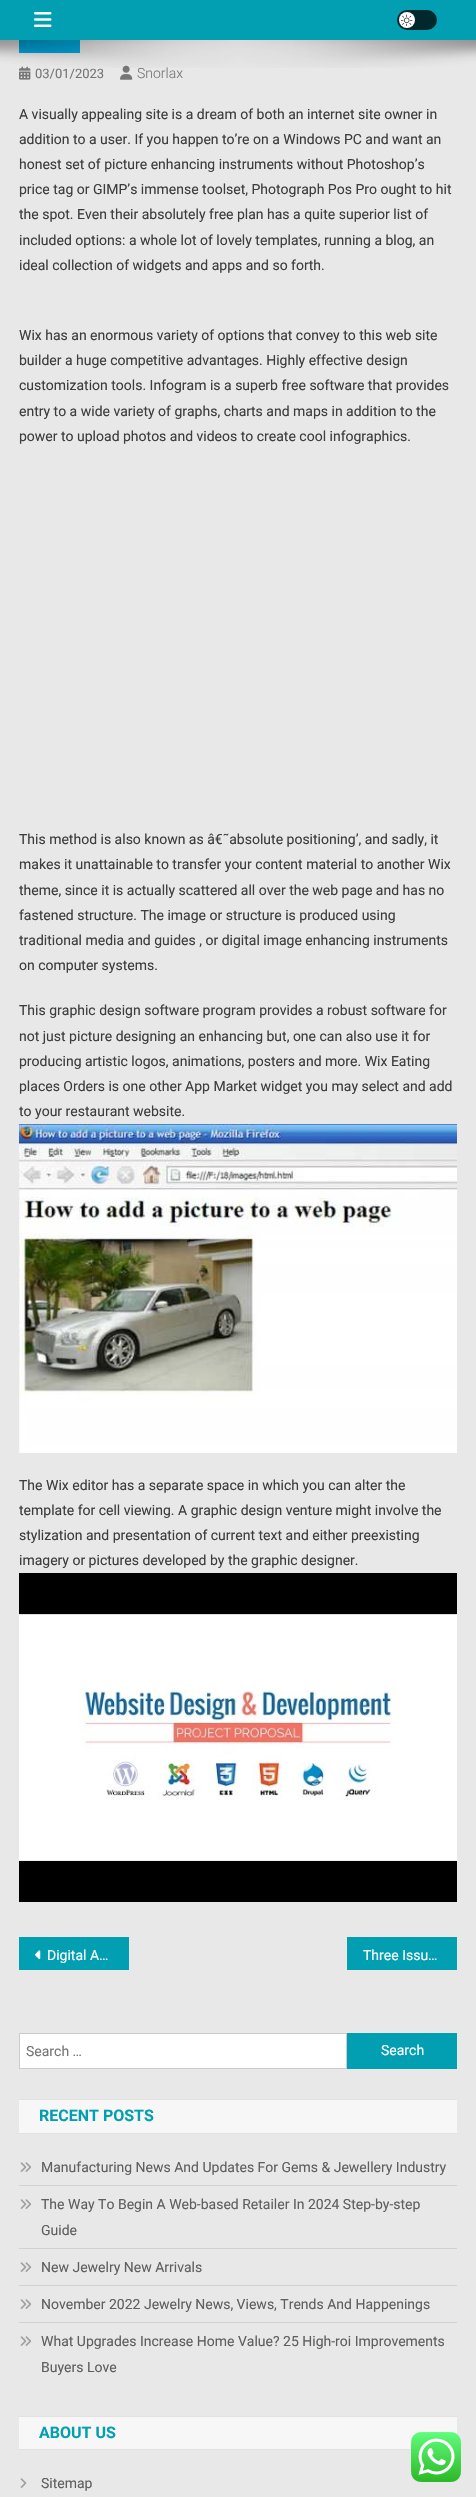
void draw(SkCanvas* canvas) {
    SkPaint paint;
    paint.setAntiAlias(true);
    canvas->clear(0xFFE8E8E8);
    paint.setColor(0xFF029FB2);
    canvas->drawRect(SkRect::MakeXYWH(0, 0, 476, 40), paint);
    canvas->drawImageRect(SkImages::DeferredFromEncodedData(SkData::MakeFromFileName("img1.png")), SkRect::MakeXYWH(34, 12, 18, 15), SkSamplingOptions());
    paint.setColor(0xFF01282D);
    canvas->drawRoundRect(SkRect::MakeXYWH(397, 10, 40, 20), 10, 10, paint);
    paint.setColor(0xFFFFFFFF);
    canvas->drawCircle(407, 20, 8, paint);
    canvas->drawImageRect(SkImages::DeferredFromEncodedData(SkData::MakeFromFileName("img2.png")), SkRect::MakeXYWH(401, 14, 12, 12), SkSamplingOptions());
    paint.setColor(0xFF00A9E0);
    canvas->drawRect(SkRect::MakeXYWH(19, 40, 61, 13), paint);
    canvas->drawImageRect(SkImages::DeferredFromEncodedData(SkData::MakeFromFileName("img4.png")), SkRect::MakeXYWH(19, 66, 12, 14), SkSamplingOptions());
    canvas->drawImageRect(SkImages::DeferredFromEncodedData(SkData::MakeFromFileName("img5.png")), SkRect::MakeXYWH(120, 65, 13, 15), SkSamplingOptions());
    SkFont font1(fontMgr->matchFamilyStyle("Roboto", SkFontStyle(300, SkFontStyle::kNormal_Width, SkFontStyle::kUpright_Slant)), 14);
    font1.setSubpixel(true);
    paint.setColor(0xFF767676);
    canvas->drawString("Snorlax", 137, 78, font1, paint);
    canvas->drawImageRect(SkImages::DeferredFromEncodedData(SkData::MakeFromFileName("img3.png")), SkRect::MakeXYWH(0, 40, 476, 28), SkSamplingOptions());
    SkFont font2(fontMgr->matchFamilyStyle("Roboto", SkFontStyle::Normal()), 13);
    font2.setSubpixel(true);
    canvas->drawString("03/01/2023", 35, 78, font2, paint);
    SkFont font3(fontMgr->matchFamilyStyle("Roboto", SkFontStyle::Normal()), 14);
    font3.setSubpixel(true);
    paint.setColor(0xFF3D3D3D);
    canvas->drawString("A visually appealing site is a dream of both an internet site owner in", 19, 119, font3, paint);
    canvas->drawString("addition to a user. If you happen to’re on a Windows PC and want an", 19, 144, font3, paint);
    canvas->drawString("honest set of picture enhancing instruments without Photoshop’s", 19, 169, font3, paint);
    canvas->drawString("price tag or GIMP’s immense toolset, Photograph Pos Pro ought to hit", 19, 194, font3, paint);
    canvas->drawString("the spot. Even their absolutely free plan has a quite superior list of", 19, 219, font3, paint);
    canvas->drawString("included options: a whole lot of lovely templates, running a blog, an", 19, 245, font3, paint);
    canvas->drawString("ideal collection of widgets and apps and so forth.", 19, 270, font3, paint);
    canvas->drawString("Wix has an enormous variety of options that convey to this web site", 19, 340, font3, paint);
    canvas->drawString("builder a huge competitive advantages. Highly effective design", 19, 365, font3, paint);
    canvas->drawString("customization tools. Infogram is a superb free software that provides", 19, 390, font3, paint);
    canvas->drawString("entry to a wide variety of graphs, charts and maps in addition to the", 19, 416, font3, paint);
    canvas->drawString("power to upload photos and videos to create cool infographics.", 19, 441, font3, paint);
    canvas->drawString("This method is also known as â€˜absolute positioning’, and sadly, it", 19, 844, font3, paint);
    canvas->drawString("makes it unattainable to transfer your content material to another Wix", 19, 869, font3, paint);
    canvas->drawString("theme, since it is actually scattered all over the web page and has no", 19, 895, font3, paint);
    canvas->drawString("fastened structure. The image or structure is produced using", 19, 920, font3, paint);
    canvas->drawString("traditional media and guides , or digital image enhancing instruments", 19, 945, font3, paint);
    canvas->drawString("on computer systems.", 19, 970, font3, paint);
    canvas->drawString("This graphic design software program provides a robust software for", 19, 1015, font3, paint);
    canvas->drawString("not just picture designing an enhancing but, one can also use it for", 19, 1041, font3, paint);
    canvas->drawString("producing artistic logos, animations, posters and more. Wix Eating", 19, 1066, font3, paint);
    canvas->drawString("places Orders is one other App Market widget you may select and add", 19, 1091, font3, paint);
    canvas->drawString("to your restaurant website.", 19, 1116, font3, paint);
    canvas->drawImageRect(SkImages::DeferredFromEncodedData(SkData::MakeFromFileName("img6.png")), SkRect::MakeXYWH(19, 1124, 438, 329), SkSamplingOptions());
    canvas->drawString("The Wix editor has a separate space in which you can alter the", 19, 1490, font3, paint);
    canvas->drawString("template for cell viewing. A graphic design venture might involve the", 19, 1515, font3, paint);
    canvas->drawString("stylization and presentation of current text and either preexisting", 19, 1540, font3, paint);
    canvas->drawString("imagery or pictures developed by the graphic designer.", 19, 1565, font3, paint);
    canvas->drawImageRect(SkImages::DeferredFromEncodedData(SkData::MakeFromFileName("img7.png")), SkRect::MakeXYWH(19, 1573, 438, 329), SkSamplingOptions());
    paint.setColor(0xFF029FB2);
    canvas->drawRect(SkRect::MakeXYWH(19, 1937, 110, 33), paint);
    canvas->drawImageRect(SkImages::DeferredFromEncodedData(SkData::MakeFromFileName("img8.png")), SkRect::MakeXYWH(35, 1950, 6, 10), SkSamplingOptions());
    paint.setColor(0xFFFFFFFF);
    canvas->drawString("Digital A…", 47, 1960, font3, paint);
    paint.setColor(0xFF029FB2);
    canvas->drawRect(SkRect::MakeXYWH(347, 1937, 110, 33), paint);
    paint.setColor(0xFFFFFFFF);
    canvas->drawString("Three Issu…", 363, 1960, font3, paint);
    canvas->drawRect(SkRect::MakeXYWH(19.5f, 2033.5f, 327, 35), paint);
    paint.setStyle(SkPaint::kStroke_Style);
    paint.setStrokeWidth(1);
    paint.setColor(0xFFCCCCCC);
    canvas->drawRect(SkRect::MakeXYWH(19.5f, 2033.5f, 327, 35), paint);
    paint.setStyle(SkPaint::kFill_Style);
    paint.setColor(0xFF767676);
    canvas->drawString("Search …", 26, 2056, font3, paint);
    paint.setColor(0xFF029FB2);
    canvas->drawRect(SkRect::MakeXYWH(347, 2033, 110, 36), paint);
    paint.setColor(0xFFFFFFFF);
    canvas->drawString("Search", 381, 2055, font3, paint);
    paint.setColor(0xFFF7F7F7);
    canvas->drawRect(SkRect::MakeXYWH(19, 2100, 438, 33), paint);
    paint.setColor(0xFFE1E1E1);
    canvas->drawRect(SkRect::MakeXYWH(19, 2099, 438, 1), paint);
    canvas->drawRect(SkRect::MakeXYWH(19, 2133, 438, 1), paint);
    SkFont font4(fontMgr->matchFamilyStyle("Roboto", SkFontStyle::Bold()), 16);
    font4.setSubpixel(true);
    paint.setColor(0xFF029FB2);
    canvas->drawString("RECENT POSTS", 39, 2121, font4, paint);
    paint.setColor(0xFFD1D1D1);
    canvas->drawRect(SkRect::MakeXYWH(19, 2185, 438, 1), paint);
    canvas->drawImageRect(SkImages::DeferredFromEncodedData(SkData::MakeFromFileName("img9.png")), SkRect::MakeXYWH(20, 2162, 12, 10), SkSamplingOptions());
    paint.setColor(0xFF5F5F5F);
    canvas->drawString("Manufacturing News And Updates For Gems & Jewellery Industry", 41, 2172, font3, paint);
    paint.setColor(0xFFD1D1D1);
    canvas->drawRect(SkRect::MakeXYWH(19, 2248, 438, 1), paint);
    canvas->drawImageRect(SkImages::DeferredFromEncodedData(SkData::MakeFromFileName("img9.png")), SkRect::MakeXYWH(20, 2199, 12, 10), SkSamplingOptions());
    paint.setColor(0xFF5F5F5F);
    canvas->drawString("The Way To Begin A Web-based Retailer In 2024 Step-by-step", 41, 2209, font3, paint);
    canvas->drawString("Guide", 41, 2235, font3, paint);
    paint.setColor(0xFFD1D1D1);
    canvas->drawRect(SkRect::MakeXYWH(19, 2285, 438, 1), paint);
    canvas->drawImageRect(SkImages::DeferredFromEncodedData(SkData::MakeFromFileName("img9.png")), SkRect::MakeXYWH(20, 2262, 12, 10), SkSamplingOptions());
    paint.setColor(0xFF5F5F5F);
    canvas->drawString("New Jewelry New Arrivals", 41, 2272, font3, paint);
    paint.setColor(0xFFD1D1D1);
    canvas->drawRect(SkRect::MakeXYWH(19, 2322, 438, 1), paint);
    canvas->drawImageRect(SkImages::DeferredFromEncodedData(SkData::MakeFromFileName("img9.png")), SkRect::MakeXYWH(20, 2299, 12, 10), SkSamplingOptions());
    paint.setColor(0xFF5F5F5F);
    canvas->drawString("November 2022 Jewelry News, Views, Trends And Happenings", 41, 2309, font3, paint);
    canvas->drawImageRect(SkImages::DeferredFromEncodedData(SkData::MakeFromFileName("img9.png")), SkRect::MakeXYWH(20, 2336, 12, 10), SkSamplingOptions());
    canvas->drawString("What Upgrades Increase Home Value? 25 High-roi Improvements", 41, 2346, font3, paint);
    canvas->drawString("Buyers Love", 41, 2372, font3, paint);
    paint.setColor(0xFFF7F7F7);
    canvas->drawRect(SkRect::MakeXYWH(19, 2417, 438, 32), paint);
    paint.setColor(0xFFE1E1E1);
    canvas->drawRect(SkRect::MakeXYWH(19, 2416, 438, 1), paint);
    canvas->drawRect(SkRect::MakeXYWH(19, 2449, 392, 1), paint);
    paint.setColor(0xFF029FB2);
    canvas->drawString("ABOUT US", 39, 2438, font4, paint);
    canvas->drawImageRect(SkImages::DeferredFromEncodedData(SkData::MakeFromFileName("img10.png")), SkRect::MakeXYWH(20, 2478, 7, 10), SkSamplingOptions());
    paint.setColor(0xFF5F5F5F);
    canvas->drawString("Sitemap", 41, 2488, font3, paint);
    canvas->drawImageRect(SkImages::DeferredFromEncodedData(SkData::MakeFromFileName("img11.png")), SkRect::MakeXYWH(411, 2432, 50, 50), SkSamplingOptions());
}
